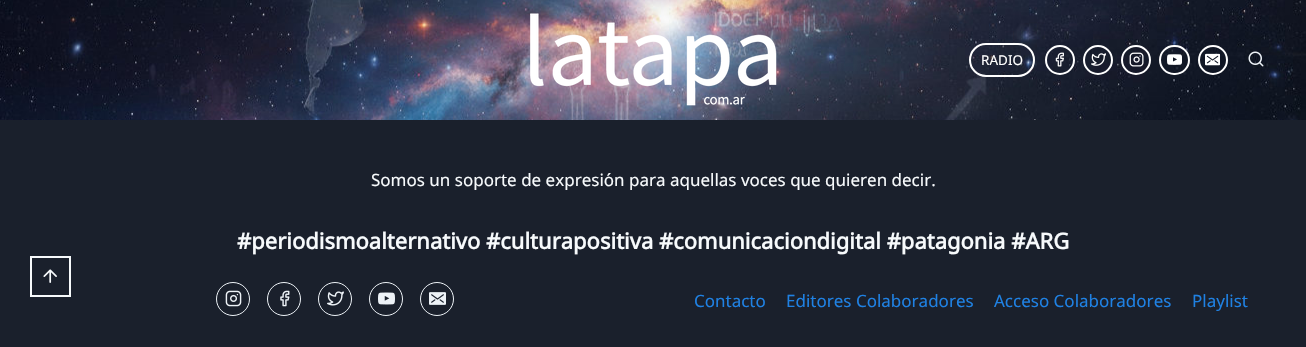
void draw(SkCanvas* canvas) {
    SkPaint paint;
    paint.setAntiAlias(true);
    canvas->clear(0xFF1A202C);
    paint.setStyle(SkPaint::kStroke_Style);
    paint.setStrokeWidth(2);
    paint.setColor(0xFFF7FAFC);
    canvas->drawRect(SkRect::MakeXYWH(31, 257, 39, 39), paint);
    canvas->drawImageRect(SkImages::DeferredFromEncodedData(SkData::MakeFromFileName("img1.png")), SkRect::MakeXYWH(43, 269, 14, 14), SkSamplingOptions());
    canvas->drawImageRect(SkImages::DeferredFromEncodedData(SkData::MakeFromFileName("img2.png")), SkRect::MakeXYWH(0, 0, 1306, 120), SkSamplingOptions());
    canvas->drawImageRect(SkImages::DeferredFromEncodedData(SkData::MakeFromFileName("img3.png")), SkRect::MakeXYWH(530, 13, 247, 93), SkSamplingOptions());
    paint.setStyle(SkPaint::kFill_Style);
    paint.setColor(0xFF302539);
    canvas->drawPath(SkPathBuilder().moveTo(1026.5f, 74.5f).cubicTo(1030.5f, 73.5f, 1033.5f, 70, 1034, 66).cubicTo(1032.5f, 69.5f, 1030, 72.5f, 1026.5f, 74.5f).close().detach(), paint);
    paint.setStyle(SkPaint::kStroke_Style);
    paint.setColor(0xFFFFFFFF);
    canvas->drawRoundRect(SkRect::MakeXYWH(970, 44, 64, 32), 16, 16, paint);
    SkFont font1(fontMgr->matchFamilyStyle("Noto Sans Coptic", SkFontStyle::Normal()), 13.5f);
    font1.setSubpixel(true);
    paint.setStyle(SkPaint::kFill_Style);
    canvas->drawString("RADIO", 981, 65, font1, paint);
    paint.setStyle(SkPaint::kStroke_Style);
    canvas->drawCircle(1060, 60, 14, paint);
    canvas->drawImageRect(SkImages::DeferredFromEncodedData(SkData::MakeFromFileName("img4.png")), SkRect::MakeXYWH(1055, 52, 9, 15), SkSamplingOptions());
    canvas->drawCircle(1098, 60, 14, paint);
    canvas->drawImageRect(SkImages::DeferredFromEncodedData(SkData::MakeFromFileName("img5.png")), SkRect::MakeXYWH(1091, 53, 15, 13), SkSamplingOptions());
    canvas->drawCircle(1136, 60, 14, paint);
    canvas->drawImageRect(SkImages::DeferredFromEncodedData(SkData::MakeFromFileName("img6.png")), SkRect::MakeXYWH(1129, 52, 15, 15), SkSamplingOptions());
    canvas->drawRoundRect(SkRect::MakeXYWH(1160, 46, 29, 28), 14, 14, paint);
    canvas->drawImageRect(SkImages::DeferredFromEncodedData(SkData::MakeFromFileName("img7.png")), SkRect::MakeXYWH(1167, 54, 15, 11), SkSamplingOptions());
    canvas->drawCircle(1213, 60, 14, paint);
    canvas->drawImageRect(SkImages::DeferredFromEncodedData(SkData::MakeFromFileName("img8.png")), SkRect::MakeXYWH(1205, 53, 15, 13), SkSamplingOptions());
    canvas->drawImageRect(SkImages::DeferredFromEncodedData(SkData::MakeFromFileName("img9.png")), SkRect::MakeXYWH(1248, 51, 16, 16), SkSamplingOptions());
    SkFont font2(fontMgr->matchFamilyStyle("Noto Sans Coptic", SkFontStyle::Normal()), 17);
    font2.setSubpixel(true);
    paint.setStyle(SkPaint::kFill_Style);
    paint.setColor(0xFFF7FAFC);
    canvas->drawString("Somos un soporte de expresión para aquellas voces que quieren decir.", 371, 186, font2, paint);
    SkFont font3(fontMgr->matchFamilyStyle("Noto Sans Coptic", SkFontStyle::Bold()), 22);
    font3.setSubpixel(true);
    canvas->drawString("#periodismoalternativo #culturapositiva #comunicaciondigital #patagonia #ARG", 237, 249, font3, paint);
    paint.setStyle(SkPaint::kStroke_Style);
    paint.setStrokeWidth(1);
    paint.setColor(0xFFEDF2F7);
    canvas->drawCircle(233, 299, 16.5f, paint);
    canvas->drawImageRect(SkImages::DeferredFromEncodedData(SkData::MakeFromFileName("img10.png")), SkRect::MakeXYWH(225, 290, 17, 17), SkSamplingOptions());
    canvas->drawCircle(284, 299, 16.5f, paint);
    canvas->drawImageRect(SkImages::DeferredFromEncodedData(SkData::MakeFromFileName("img11.png")), SkRect::MakeXYWH(280, 290, 10, 17), SkSamplingOptions());
    canvas->drawCircle(335, 299, 16.5f, paint);
    canvas->drawImageRect(SkImages::DeferredFromEncodedData(SkData::MakeFromFileName("img12.png")), SkRect::MakeXYWH(327, 291, 17, 15), SkSamplingOptions());
    canvas->drawCircle(386, 299, 16.5f, paint);
    canvas->drawImageRect(SkImages::DeferredFromEncodedData(SkData::MakeFromFileName("img13.png")), SkRect::MakeXYWH(378, 292, 17, 13), SkSamplingOptions());
    canvas->drawCircle(437, 299, 16.5f, paint);
    canvas->drawImageRect(SkImages::DeferredFromEncodedData(SkData::MakeFromFileName("img14.png")), SkRect::MakeXYWH(429, 292, 17, 13), SkSamplingOptions());
    paint.setStyle(SkPaint::kFill_Style);
    paint.setColor(0xFF1F81E3);
    canvas->drawString("Contacto", 694, 307, font2, paint);
    canvas->drawString("Editores Colaboradores", 786, 307, font2, paint);
    canvas->drawString("Acceso Colaboradores", 994, 307, font2, paint);
    canvas->drawString("Playlist", 1192, 307, font2, paint);
}
